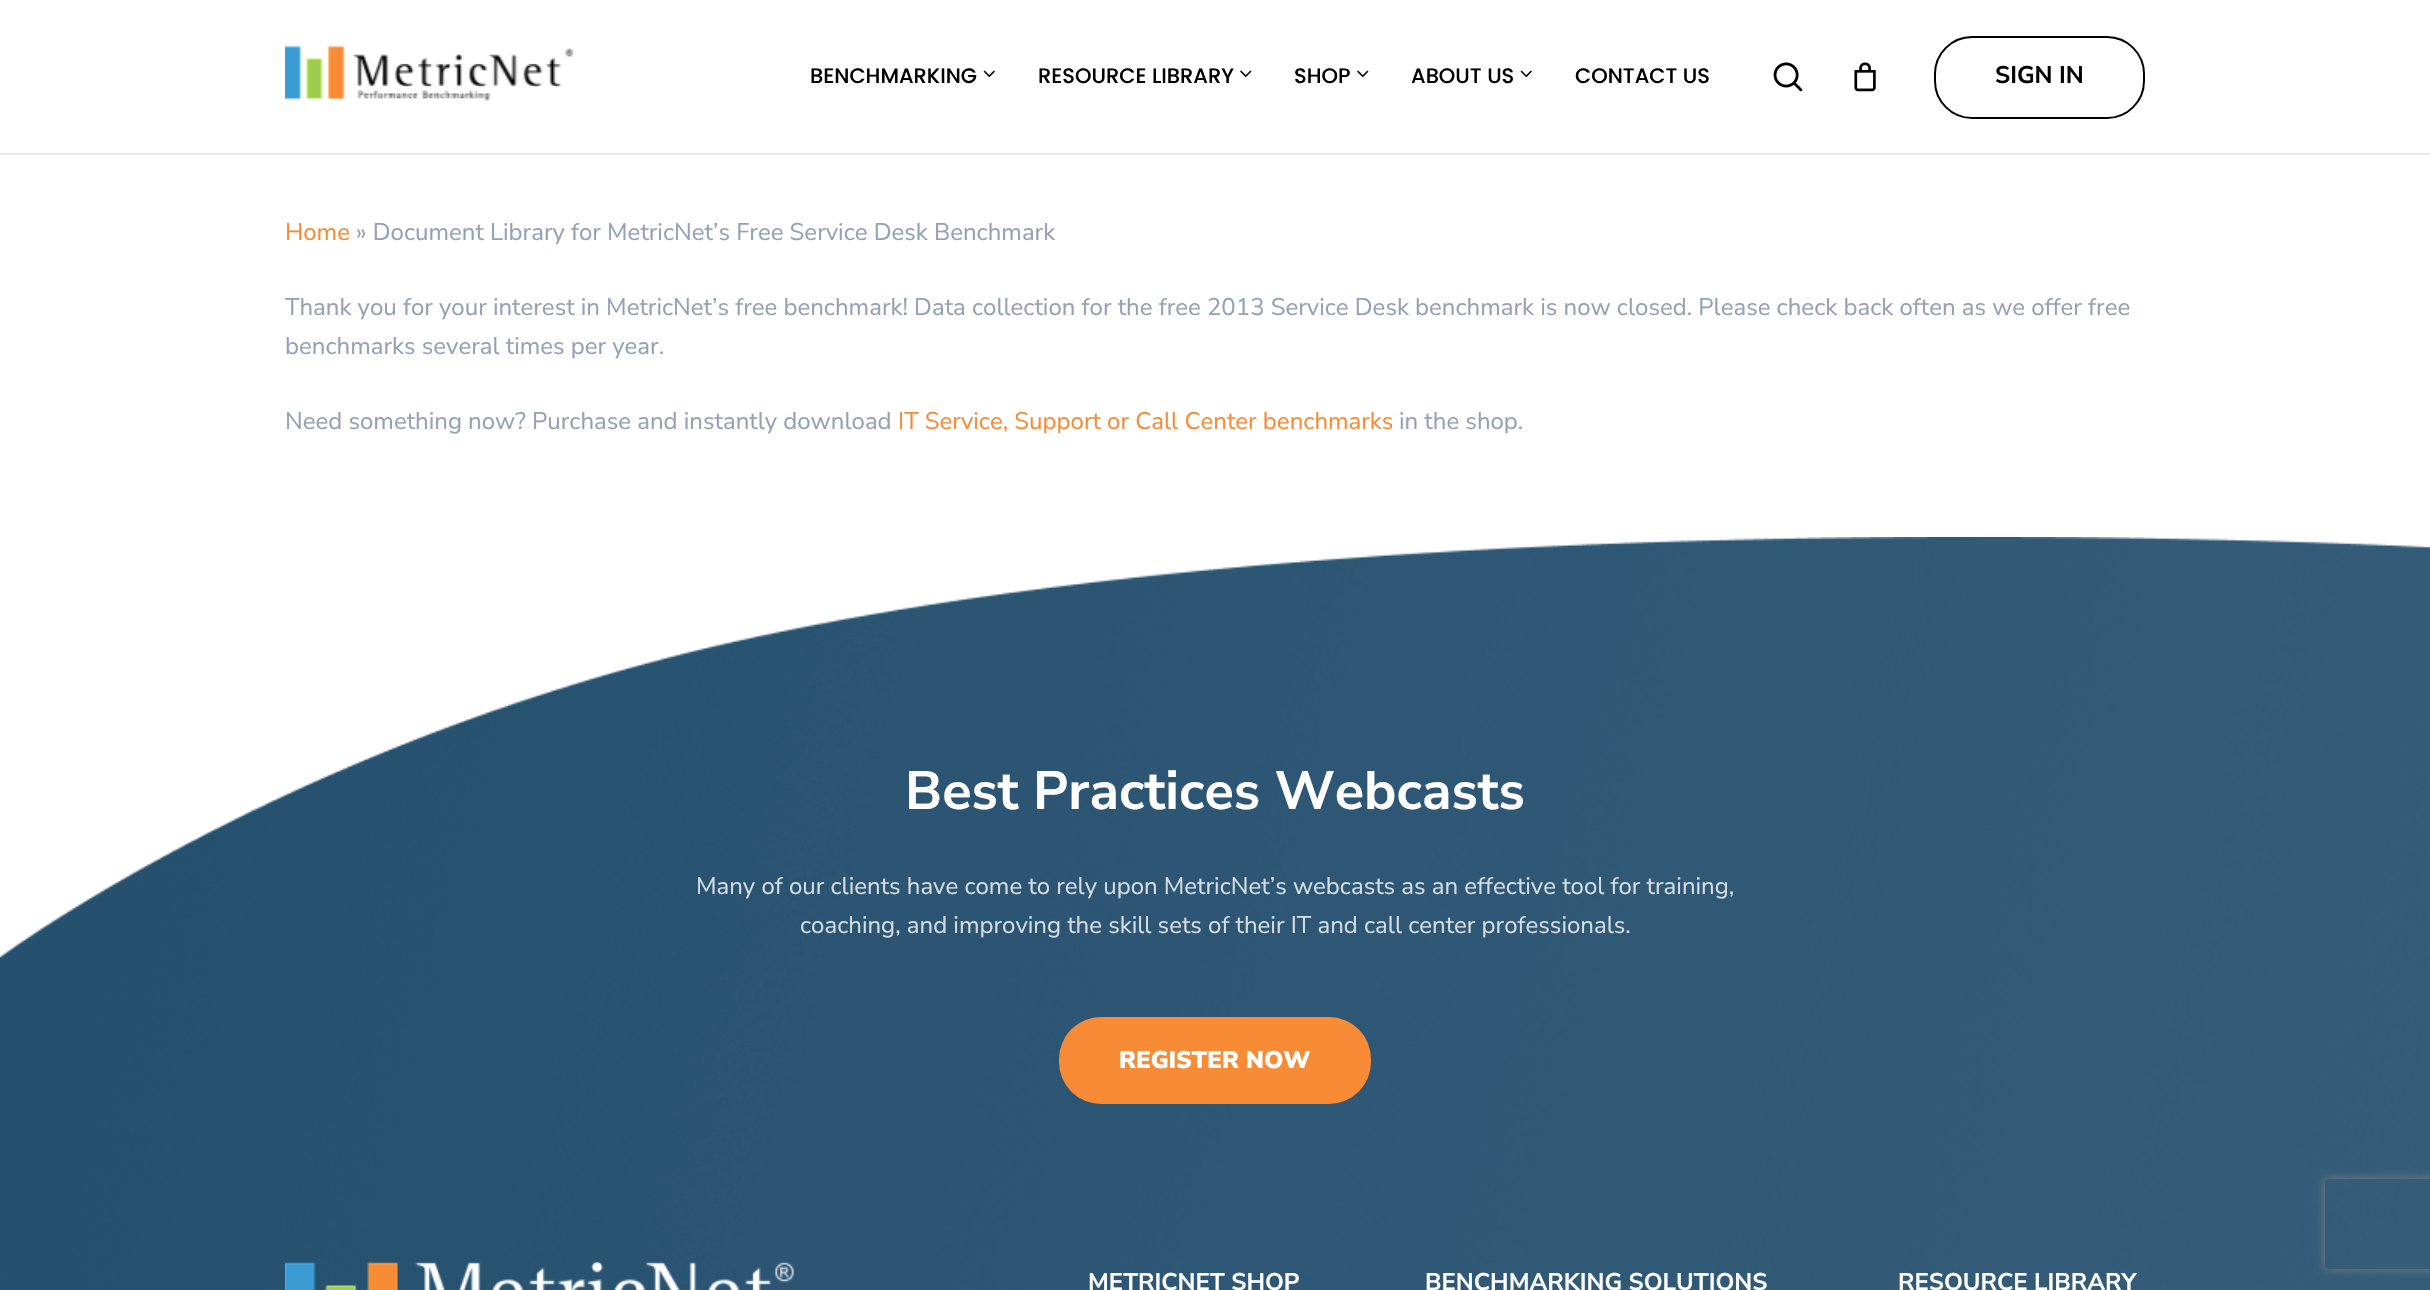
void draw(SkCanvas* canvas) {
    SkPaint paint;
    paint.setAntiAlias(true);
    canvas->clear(0xFFFFFFFF);
    paint.setColor(0xFFE8EAEE);
    canvas->drawRect(SkRect::MakeXYWH(0, 153, 2430, 2), paint);
    canvas->drawImageRect(SkImages::DeferredFromEncodedData(SkData::MakeFromFileName("img1.png")), SkRect::MakeXYWH(285, 45, 290, 57), SkSamplingOptions());
    SkFont font1(fontMgr->matchFamilyStyle("Poppins", SkFontStyle(500, SkFontStyle::kNormal_Width, SkFontStyle::kUpright_Slant)), 21);
    font1.setSubpixel(true);
    paint.setColor(0xFF000000);
    canvas->drawString("BENCHMARKING", 810, 83, font1, paint);
    canvas->drawImageRect(SkImages::DeferredFromEncodedData(SkData::MakeFromFileName("img2.png")), SkRect::MakeXYWH(983, 70, 12, 8), SkSamplingOptions());
    canvas->drawString("RESOURCE LIBRARY", 1038, 83, font1, paint);
    canvas->drawImageRect(SkImages::DeferredFromEncodedData(SkData::MakeFromFileName("img3.png")), SkRect::MakeXYWH(1240, 70, 12, 8), SkSamplingOptions());
    canvas->drawString("SHOP", 1294, 83, font1, paint);
    canvas->drawImageRect(SkImages::DeferredFromEncodedData(SkData::MakeFromFileName("img3.png")), SkRect::MakeXYWH(1357, 70, 12, 8), SkSamplingOptions());
    canvas->drawString("ABOUT US", 1411, 83, font1, paint);
    canvas->drawImageRect(SkImages::DeferredFromEncodedData(SkData::MakeFromFileName("img2.png")), SkRect::MakeXYWH(1520, 70, 12, 8), SkSamplingOptions());
    canvas->drawString("CONTACT US", 1575, 83, font1, paint);
    canvas->drawImageRect(SkImages::DeferredFromEncodedData(SkData::MakeFromFileName("img4.png")), SkRect::MakeXYWH(1773, 62, 30, 30), SkSamplingOptions());
    canvas->drawImageRect(SkImages::DeferredFromEncodedData(SkData::MakeFromFileName("img5.png")), SkRect::MakeXYWH(1854, 62, 22, 30), SkSamplingOptions());
    paint.setStyle(SkPaint::kStroke_Style);
    paint.setStrokeWidth(2);
    canvas->drawRoundRect(SkRect::MakeXYWH(1935, 37, 209, 81), 37, 37, paint);
    SkFont font2(fontMgr->matchFamilyStyle("Nunito Sans", SkFontStyle::Bold()), 24);
    font2.setSubpixel(true);
    paint.setStyle(SkPaint::kFill_Style);
    canvas->drawString("SIGN IN", 1995, 83, font2, paint);
    SkFont font3(fontMgr->matchFamilyStyle("Nunito Sans", SkFontStyle::Normal()), 24);
    font3.setSubpixel(true);
    paint.setColor(0xFFF78B36);
    canvas->drawString("Home", 285, 240, font3, paint);
    paint.setColor(0xFF96A0B5);
    canvas->drawString("» Document Library for MetricNet’s Free Service Desk Benchmark", 356, 240, font3, paint);
    canvas->drawString("Thank you for your interest in MetricNet’s free benchmark! Data collection for the free 2013 Service Desk benchmark is now closed. Please check back often as we offer free", 285, 315, font3, paint);
    canvas->drawString("benchmarks several times per year.", 285, 354, font3, paint);
    canvas->drawString("Need something now? Purchase and instantly download", 285, 429, font3, paint);
    paint.setColor(0xFFF78B36);
    canvas->drawString("IT Service, Support or Call Center benchmarks", 898, 429, font3, paint);
    paint.setColor(0xFF96A0B5);
    canvas->drawString("in the shop.", 1399, 429, font3, paint);
    canvas->drawImageRect(SkImages::DeferredFromEncodedData(SkData::MakeFromFileName("img6.png")), SkRect::MakeXYWH(0, 537, 2430, 753), SkSamplingOptions());
    SkFont font4(fontMgr->matchFamilyStyle("Nunito Sans", SkFontStyle::Bold()), 54);
    font4.setSubpixel(true);
    paint.setColor(0xFFFFFFFF);
    canvas->drawString("Best Practices Webcasts", 905, 809, font4, paint);
    paint.setColor(0xFFD5DDE3);
    canvas->drawString("Many of our clients have come to rely upon MetricNet’s webcasts as an effective tool for training,", 696, 894, font3, paint);
    canvas->drawString("coaching, and improving the skill sets of their IT and call center professionals.", 800, 933, font3, paint);
    paint.setColor(0xFFF78B36);
    canvas->drawRoundRect(SkRect::MakeXYWH(1059, 1017, 312, 87), 42, 42, paint);
    SkFont font5(fontMgr->matchFamilyStyle("Nunito Sans", SkFontStyle(900, SkFontStyle::kNormal_Width, SkFontStyle::kUpright_Slant)), 24);
    font5.setSubpixel(true);
    paint.setColor(0xFFFFFFFF);
    canvas->drawString("REGISTER NOW", 1119, 1068, font5, paint);
    canvas->drawImageRect(SkImages::DeferredFromEncodedData(SkData::MakeFromFileName("img7.png")), SkRect::MakeXYWH(285, 1262, 510, 28), SkSamplingOptions());
    canvas->drawString("METRICNET SHOP", 1088, 1290, font2, paint);
    canvas->drawString("BENCHMARKING SOLUTIONS", 1425, 1290, font2, paint);
    canvas->drawString("RESOURCE LIBRARY", 1898, 1290, font2, paint);
    canvas->save();
    canvas->clipPath(SkPathBuilder(SkPathFillType::kEvenOdd).moveTo(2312, 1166).lineTo(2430, 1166).lineTo(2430, 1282).lineTo(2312, 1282).close().moveTo(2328, 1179).lineTo(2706, 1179).cubicTo(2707.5f, 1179, 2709, 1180.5f, 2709, 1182).lineTo(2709, 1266).cubicTo(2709, 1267.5f, 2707.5f, 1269, 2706, 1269).lineTo(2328, 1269).cubicTo(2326.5f, 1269, 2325, 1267.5f, 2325, 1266).lineTo(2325, 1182).cubicTo(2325, 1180.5f, 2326.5f, 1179, 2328, 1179).close().detach(), true);
    paint.setColor(0xFF808080);
    paint.setMaskFilter(SkMaskFilter::MakeBlur(kNormal_SkBlurStyle, 4));
    canvas->drawRoundRect(SkRect::MakeXYWH(2325, 1179, 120, 90), 3, 3, paint);
    paint.setMaskFilter(nullptr);
    canvas->restore();
}
